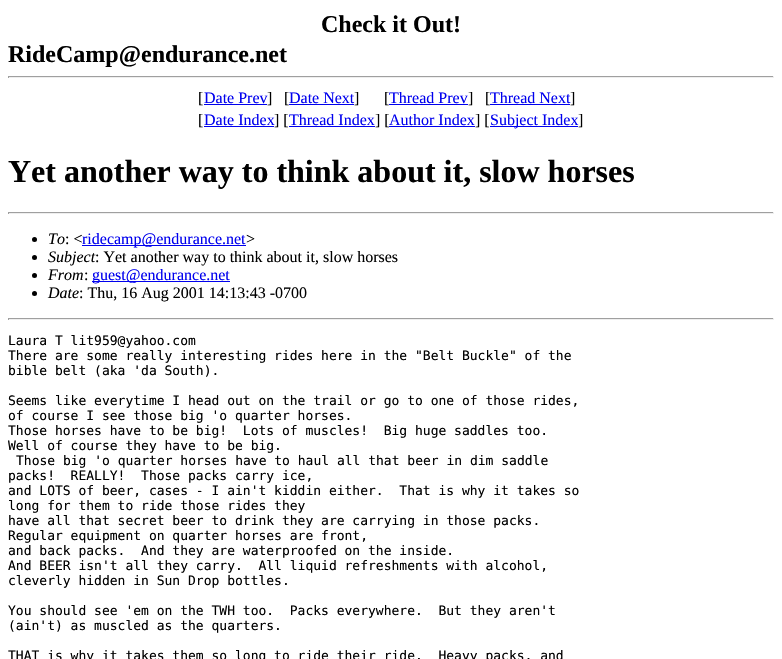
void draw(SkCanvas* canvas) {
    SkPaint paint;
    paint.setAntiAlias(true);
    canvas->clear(0xFFFFFFFF);
    SkFont font1(fontMgr->matchFamilyStyle("Liberation Serif", SkFontStyle::Bold()), 24);
    font1.setSubpixel(true);
    paint.setColor(0xFF000000);
    canvas->drawString("Check it Out!", 321, 32, font1, paint);
    canvas->drawString("RideCamp@endurance.net", 8, 62, font1, paint);
    paint.setColor(0xFF9F9F9F);
    canvas->drawRect(SkRect::MakeXYWH(8, 76, 766, 1), paint);
    paint.setColor(0xFFEEEEEE);
    canvas->drawRect(SkRect::MakeXYWH(773, 76, 1, 2), paint);
    canvas->drawRect(SkRect::MakeXYWH(8, 77, 766, 1), paint);
    paint.setColor(0xFF9F9F9F);
    canvas->drawRect(SkRect::MakeXYWH(8, 76, 1, 2), paint);
    SkFont font2(fontMgr->matchFamilyStyle("Liberation Serif", SkFontStyle::Normal()), 16);
    font2.setSubpixel(true);
    paint.setColor(0xFF000000);
    canvas->drawString("[", 198, 103, font2, paint);
    paint.setColor(0xFF0000EE);
    canvas->drawString("Date Prev", 204, 103, font2, paint);
    canvas->drawRect(SkRect::MakeXYWH(204, 104, 63, 1), paint);
    paint.setColor(0xFF000000);
    canvas->drawString("]", 267, 103, font2, paint);
    canvas->drawString("[", 284, 103, font2, paint);
    paint.setColor(0xFF0000EE);
    canvas->drawString("Date Next", 289, 103, font2, paint);
    canvas->drawRect(SkRect::MakeXYWH(289, 104, 65, 1), paint);
    paint.setColor(0xFF000000);
    canvas->drawString("]", 354, 103, font2, paint);
    canvas->drawString("[", 384, 103, font2, paint);
    paint.setColor(0xFF0000EE);
    canvas->drawString("Thread Prev", 389, 103, font2, paint);
    canvas->drawRect(SkRect::MakeXYWH(389, 104, 79, 1), paint);
    paint.setColor(0xFF000000);
    canvas->drawString("]", 468, 103, font2, paint);
    canvas->drawString("[", 485, 103, font2, paint);
    paint.setColor(0xFF0000EE);
    canvas->drawString("Thread Next", 490, 103, font2, paint);
    canvas->drawRect(SkRect::MakeXYWH(490, 104, 80, 1), paint);
    paint.setColor(0xFF000000);
    canvas->drawString("]", 570, 103, font2, paint);
    canvas->drawString("[", 198, 125, font2, paint);
    paint.setColor(0xFF0000EE);
    canvas->drawString("Date Index", 204, 125, font2, paint);
    canvas->drawRect(SkRect::MakeXYWH(204, 126, 70, 1), paint);
    paint.setColor(0xFF000000);
    canvas->drawString("] [", 274, 125, font2, paint);
    paint.setColor(0xFF0000EE);
    canvas->drawString("Thread Index", 289, 125, font2, paint);
    canvas->drawRect(SkRect::MakeXYWH(289, 126, 86, 1), paint);
    paint.setColor(0xFF000000);
    canvas->drawString("] [", 375, 125, font2, paint);
    paint.setColor(0xFF0000EE);
    canvas->drawString("Author Index", 389, 125, font2, paint);
    canvas->drawRect(SkRect::MakeXYWH(389, 126, 86, 1), paint);
    paint.setColor(0xFF000000);
    canvas->drawString("] [", 475, 125, font2, paint);
    paint.setColor(0xFF0000EE);
    canvas->drawRect(SkRect::MakeXYWH(490, 126, 88, 1), paint);
    canvas->drawString("Subject Index", 490, 125, font2, paint);
    paint.setColor(0xFF000000);
    canvas->drawString("]", 578, 125, font2, paint);
    SkFont font3(fontMgr->matchFamilyStyle("Liberation Serif", SkFontStyle::Bold()), 32);
    font3.setSubpixel(true);
    canvas->drawString("Yet another way to think about it, slow horses", 8, 182, font3, paint);
    paint.setColor(0xFF9F9F9F);
    canvas->drawRect(SkRect::MakeXYWH(8, 212, 766, 1), paint);
    paint.setColor(0xFFEEEEEE);
    canvas->drawRect(SkRect::MakeXYWH(773, 212, 1, 2), paint);
    canvas->drawRect(SkRect::MakeXYWH(8, 213, 766, 1), paint);
    paint.setColor(0xFF9F9F9F);
    canvas->drawRect(SkRect::MakeXYWH(8, 212, 1, 2), paint);
    paint.setColor(0xFF000000);
    canvas->drawCircle(34.5f, 239.5f, 2.5f, paint);
    SkFont font4(fontMgr->matchFamilyStyle("Liberation Serif", SkFontStyle::Italic()), 16);
    font4.setSubpixel(true);
    canvas->drawString("To", 48, 244, font4, paint);
    canvas->drawString(": <", 65, 244, font2, paint);
    paint.setColor(0xFF0000EE);
    canvas->drawRect(SkRect::MakeXYWH(82, 245, 164, 1), paint);
    canvas->drawString("ridecamp@endurance.net", 82, 244, font2, paint);
    paint.setColor(0xFF000000);
    canvas->drawString(">", 246, 244, font2, paint);
    canvas->drawCircle(34.5f, 257.5f, 2.5f, paint);
    canvas->drawString("Subject", 48, 262, font4, paint);
    canvas->drawString(": Yet another way to think about it, slow horses", 95, 262, font2, paint);
    canvas->drawCircle(34.5f, 275.5f, 2.5f, paint);
    canvas->drawString("From", 48, 280, font4, paint);
    canvas->drawString(":", 84, 280, font2, paint);
    paint.setColor(0xFF0000EE);
    canvas->drawRect(SkRect::MakeXYWH(92, 281, 138, 1), paint);
    canvas->drawString("guest@endurance.net", 92, 280, font2, paint);
    paint.setColor(0xFF000000);
    canvas->drawCircle(34.5f, 293.5f, 2.5f, paint);
    canvas->drawString("Date", 48, 298, font4, paint);
    canvas->drawString(": Thu, 16 Aug 2001 14:13:43 -0700", 79, 298, font2, paint);
    paint.setColor(0xFF9F9F9F);
    canvas->drawRect(SkRect::MakeXYWH(8, 318, 766, 1), paint);
    paint.setColor(0xFFEEEEEE);
    canvas->drawRect(SkRect::MakeXYWH(773, 318, 1, 2), paint);
    canvas->drawRect(SkRect::MakeXYWH(8, 319, 766, 1), paint);
    paint.setColor(0xFF9F9F9F);
    canvas->drawRect(SkRect::MakeXYWH(8, 318, 1, 2), paint);
    SkFont font5(fontMgr->matchFamilyStyle("DejaVu Sans Mono", SkFontStyle::Normal()), 13);
    font5.setSubpixel(true);
    paint.setColor(0xFF000000);
    canvas->drawString("Laura T lit959@yahoo.com", 8, 345, font5, paint);
    canvas->drawString("There are some really interesting rides here in the \"Belt Buckle\" of the", 8, 360, font5, paint);
    canvas->drawString("bible belt (aka 'da South).", 8, 375, font5, paint);
    canvas->drawString("Seems like everytime I head out on the trail or go to one of those rides,", 8, 405, font5, paint);
    canvas->drawString("of course I see those big 'o quarter horses.", 8, 420, font5, paint);
    canvas->drawString("Those horses have to be big!  Lots of muscles!  Big huge saddles too.", 8, 435, font5, paint);
    canvas->drawString("Well of course they have to be big.", 8, 450, font5, paint);
    canvas->drawString("Those big 'o quarter horses have to haul all that beer in dim saddle", 16, 465, font5, paint);
    canvas->drawString("packs!  REALLY!  Those packs carry ice,", 8, 480, font5, paint);
    canvas->drawString("and LOTS of beer, cases - I ain't kiddin either.  That is why it takes so", 8, 495, font5, paint);
    canvas->drawString("long for them to ride those rides they", 8, 510, font5, paint);
    canvas->drawString("have all that secret beer to drink they are carrying in those packs.", 8, 525, font5, paint);
    canvas->drawString("Regular equipment on quarter horses are front,", 8, 540, font5, paint);
    canvas->drawString("and back packs.  And they are waterproofed on the inside.", 8, 555, font5, paint);
    canvas->drawString("And BEER isn't all they carry.  All liquid refreshments with alcohol,", 8, 570, font5, paint);
    canvas->drawString("cleverly hidden in Sun Drop bottles.", 8, 585, font5, paint);
    canvas->drawString("You should see 'em on the TWH too.  Packs everywhere.  But they aren't", 8, 615, font5, paint);
    canvas->drawString("(ain't) as muscled as the quarters.", 8, 630, font5, paint);
    canvas->drawString("THAT is why it takes them so long to ride their ride.  Heavy packs, and", 8, 660, font5, paint);
}
